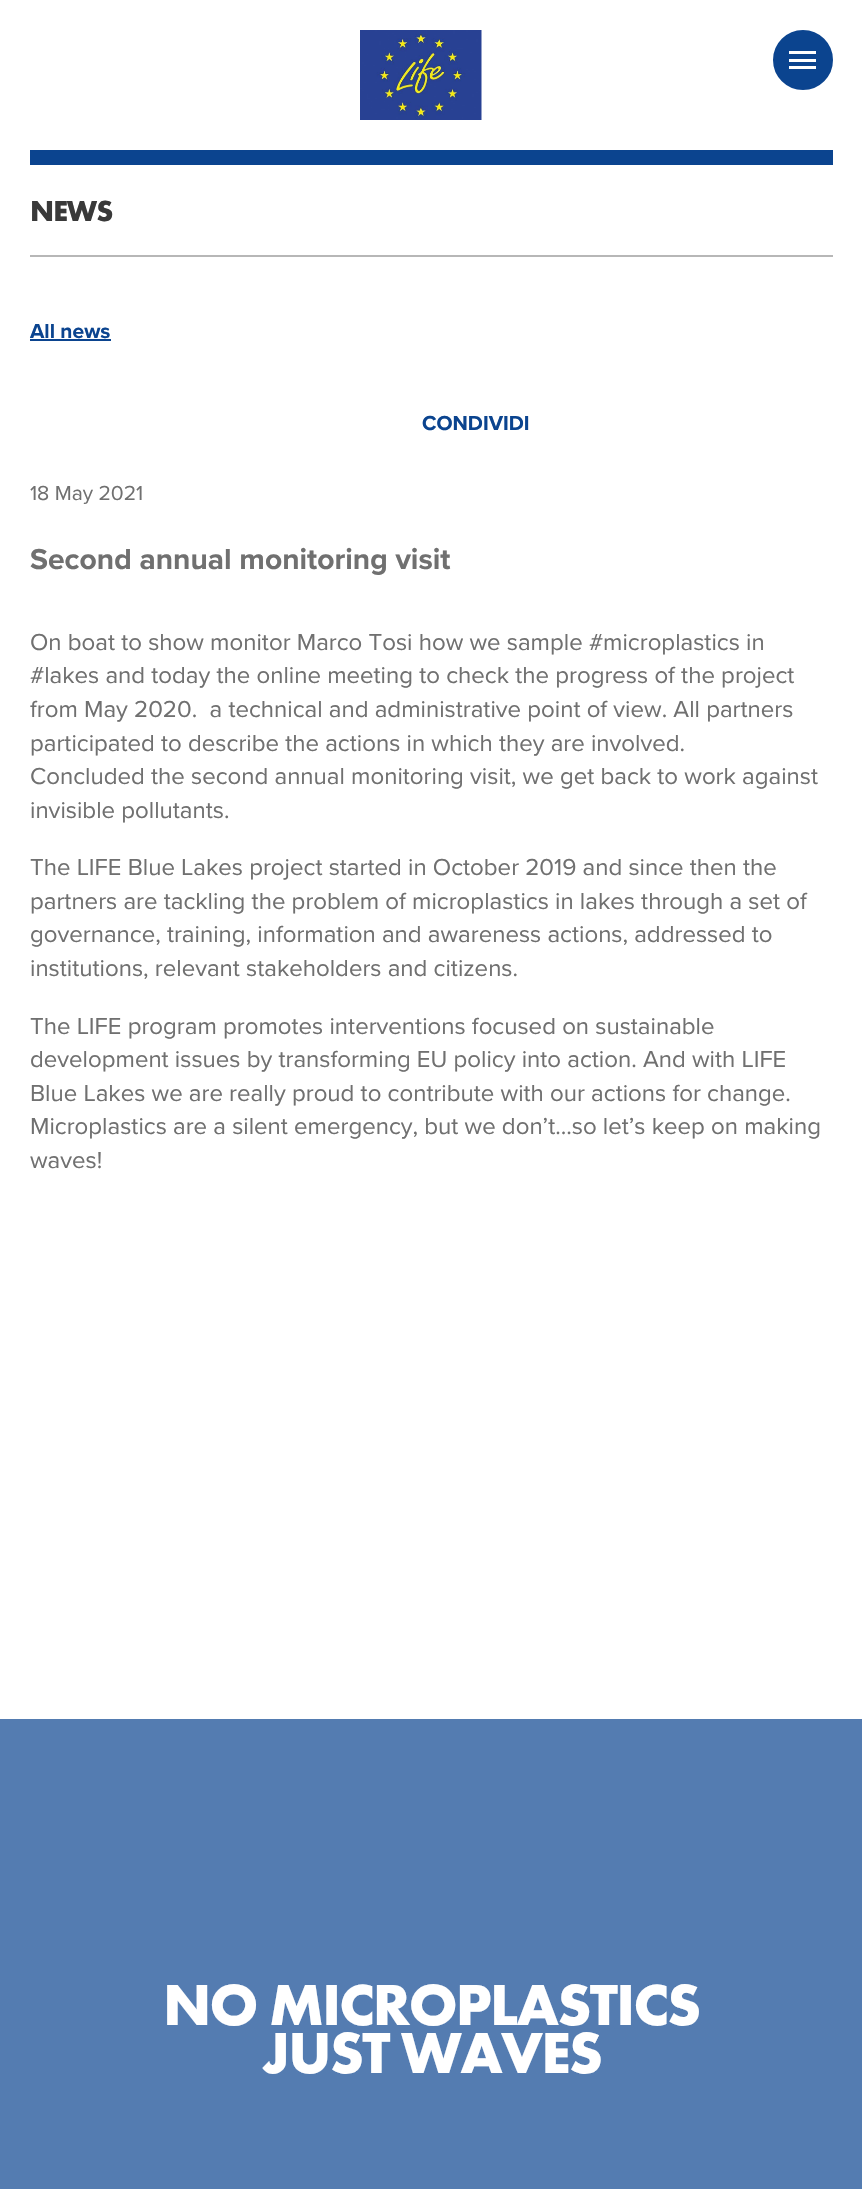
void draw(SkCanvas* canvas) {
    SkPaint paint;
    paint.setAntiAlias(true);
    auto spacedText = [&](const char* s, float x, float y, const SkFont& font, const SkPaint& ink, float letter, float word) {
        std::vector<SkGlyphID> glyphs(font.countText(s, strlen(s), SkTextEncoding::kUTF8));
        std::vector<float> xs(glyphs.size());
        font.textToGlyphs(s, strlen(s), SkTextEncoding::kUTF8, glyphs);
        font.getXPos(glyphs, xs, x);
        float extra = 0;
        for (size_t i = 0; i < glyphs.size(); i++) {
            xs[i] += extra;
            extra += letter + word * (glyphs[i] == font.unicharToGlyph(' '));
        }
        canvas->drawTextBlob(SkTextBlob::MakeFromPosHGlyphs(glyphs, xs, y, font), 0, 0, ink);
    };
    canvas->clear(0xFFFFFFFF);
    canvas->drawImageRect(SkImages::DeferredFromEncodedData(SkData::MakeFromFileName("img1.png")), SkRect::MakeXYWH(360, 30, 122, 90), SkSamplingOptions());
    paint.setColor(0xFF0B448F);
    canvas->drawCircle(803, 60, 29, paint);
    paint.setStyle(SkPaint::kStroke_Style);
    paint.setStrokeWidth(2);
    canvas->drawCircle(803, 60, 29, paint);
    paint.setStyle(SkPaint::kFill_Style);
    paint.setColor(0xFFFFFFFF);
    canvas->drawRect(SkRect::MakeXYWH(789, 59, 27, 3), paint);
    canvas->drawRect(SkRect::MakeXYWH(789, 51, 27, 3), paint);
    canvas->drawRect(SkRect::MakeXYWH(789, 66, 27, 3), paint);
    paint.setColor(0xFF0B448F);
    canvas->drawRect(SkRect::MakeXYWH(30, 150, 803, 15), paint);
    paint.setColor(0xFFB7B7B7);
    canvas->drawRect(SkRect::MakeXYWH(30, 255, 803, 2), paint);
    SkFont font1(fontMgr->matchFamilyStyle("Futura PT", SkFontStyle::Bold()), 30);
    font1.setSubpixel(true);
    paint.setColor(0xFF393939);
    spacedText("NEWS", 30, 221, font1, paint, -1, 0);
    SkFont font2(fontMgr->matchFamilyStyle("Proxima Nova", SkFontStyle::Bold()), 21);
    font2.setSubpixel(true);
    paint.setColor(0xFF0B448F);
    canvas->drawString("All news", 30, 338, font2, paint);
    canvas->drawRect(SkRect::MakeXYWH(30, 339, 81, 2), paint);
    canvas->drawString("CONDIVIDI", 422, 430, font2, paint);
    SkFont font3(fontMgr->matchFamilyStyle("Proxima Nova", SkFontStyle::Normal()), 21);
    font3.setSubpixel(true);
    paint.setColor(0xFF707070);
    canvas->drawString("18 May 2021", 30, 500, font3, paint);
    SkFont font4(fontMgr->matchFamilyStyle("Proxima Nova", SkFontStyle::Bold()), 30);
    font4.setSubpixel(true);
    canvas->drawString("Second annual monitoring visit", 30, 569, font4, paint);
    SkFont font5(fontMgr->matchFamilyStyle("Proxima Nova", SkFontStyle::Normal()), 24);
    font5.setSubpixel(true);
    canvas->drawString("On boat to show monitor Marco Tosi how we sample #microplastics in", 30, 650, font5, paint);
    canvas->drawString("#lakes and today the online meeting to check the progress of the project", 30, 683, font5, paint);
    canvas->drawString("from May 2020.  a technical and administrative point of view. All partners", 30, 717, font5, paint);
    canvas->drawString("participated to describe the actions in which they are involved.", 30, 751, font5, paint);
    canvas->drawString("Concluded the second annual monitoring visit, we get back to work against", 30, 784, font5, paint);
    canvas->drawString("invisible pollutants.", 30, 818, font5, paint);
    canvas->drawString("The LIFE Blue Lakes project started in October 2019 and since then the", 30, 875, font5, paint);
    canvas->drawString("partners are tackling the problem of microplastics in lakes through a set of", 30, 909, font5, paint);
    canvas->drawString("governance, training, information and awareness actions, addressed to", 30, 942, font5, paint);
    canvas->drawString("institutions, relevant stakeholders and citizens.", 30, 976, font5, paint);
    canvas->drawString("The LIFE program promotes interventions focused on sustainable", 30, 1034, font5, paint);
    canvas->drawString("development issues by transforming EU policy into action. And with LIFE", 30, 1067, font5, paint);
    canvas->drawString("Blue Lakes we are really proud to contribute with our actions for change.", 30, 1101, font5, paint);
    canvas->drawString("Microplastics are a silent emergency, but we don’t…so let’s keep on making", 30, 1134, font5, paint);
    canvas->drawString("waves!", 30, 1168, font5, paint);
    paint.setColor(0xFF547CB1);
    canvas->drawRect(SkRect::MakeXYWH(0, 1719, 862, 470), paint);
    SkFont font6(fontMgr->matchFamilyStyle("Futura PT", SkFontStyle::Bold()), 60);
    font6.setSubpixel(true);
    paint.setColor(0xFFFFFFFF);
    spacedText("NO MICROPLASTICS", 163, 2025, font6, paint, -1.75f, 0);
    spacedText("JUST WAVES", 262, 2073, font6, paint, -1.75f, 0);
}
